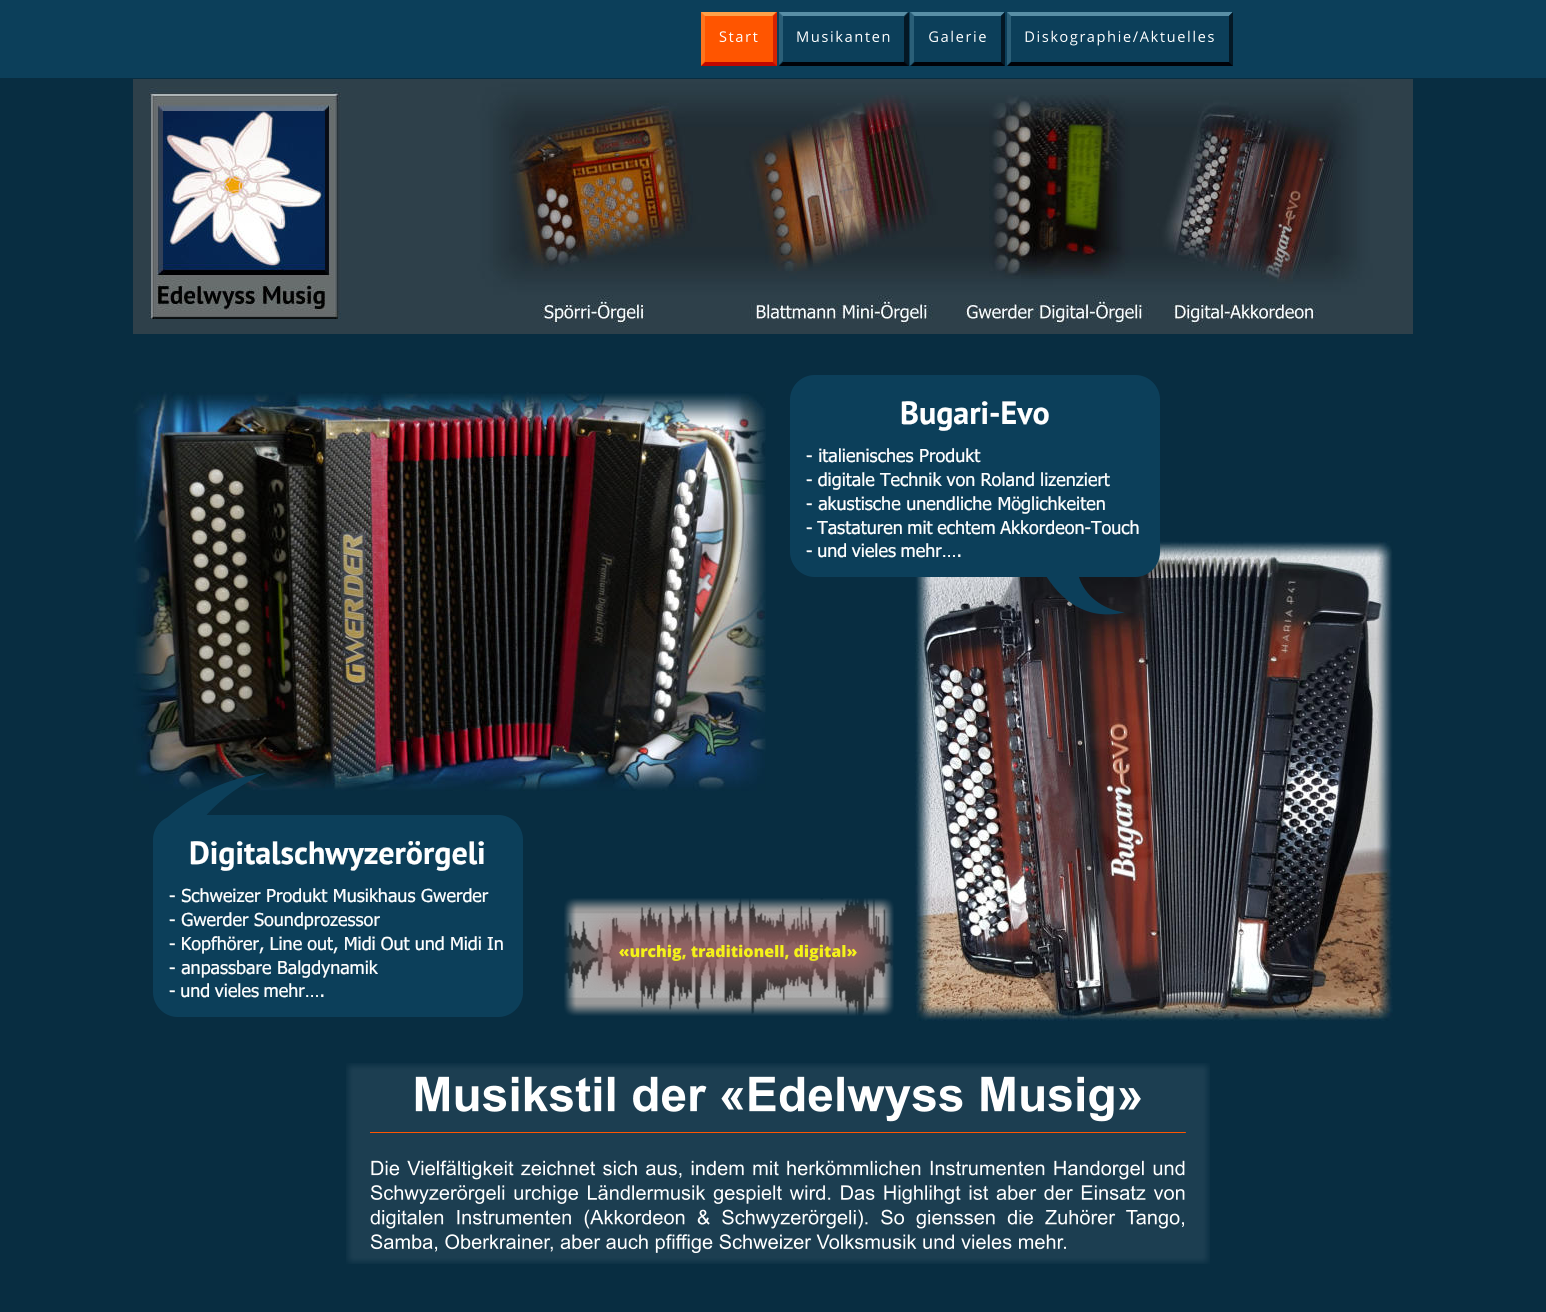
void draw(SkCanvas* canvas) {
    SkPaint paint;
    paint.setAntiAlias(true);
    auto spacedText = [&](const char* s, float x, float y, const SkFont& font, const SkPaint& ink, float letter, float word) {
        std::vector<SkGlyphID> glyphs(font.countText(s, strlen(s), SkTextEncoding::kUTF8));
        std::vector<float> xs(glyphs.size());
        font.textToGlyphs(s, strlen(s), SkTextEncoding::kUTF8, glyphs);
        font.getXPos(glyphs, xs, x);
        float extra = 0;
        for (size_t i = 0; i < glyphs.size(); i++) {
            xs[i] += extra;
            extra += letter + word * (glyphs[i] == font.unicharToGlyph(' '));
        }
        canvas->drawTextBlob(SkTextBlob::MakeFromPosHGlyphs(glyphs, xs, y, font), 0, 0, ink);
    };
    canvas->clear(0xFF082D41);
    paint.setColor(0xFF0C3F5A);
    canvas->drawRect(SkRect::MakeXYWH(0, 0, 1546, 78), paint);
    canvas->drawImageRect(SkImages::DeferredFromEncodedData(SkData::MakeFromFileName("img1.png")), SkRect::MakeXYWH(701, 12, 76, 54), SkSamplingOptions());
    canvas->drawImageRect(SkImages::DeferredFromEncodedData(SkData::MakeFromFileName("img2.png")), SkRect::MakeXYWH(779, 12, 130, 54), SkSamplingOptions());
    canvas->drawImageRect(SkImages::DeferredFromEncodedData(SkData::MakeFromFileName("img3.png")), SkRect::MakeXYWH(910, 12, 95, 54), SkSamplingOptions());
    canvas->drawImageRect(SkImages::DeferredFromEncodedData(SkData::MakeFromFileName("img4.png")), SkRect::MakeXYWH(1007, 12, 226, 54), SkSamplingOptions());
    canvas->drawImageRect(SkImages::DeferredFromEncodedData(SkData::MakeFromFileName("img5.png")), SkRect::MakeXYWH(133, 79, 1280, 255), SkSamplingOptions());
    canvas->drawImageRect(SkImages::DeferredFromEncodedData(SkData::MakeFromFileName("img6.png")), SkRect::MakeXYWH(133, 392, 633, 399), SkSamplingOptions());
    canvas->drawImageRect(SkImages::DeferredFromEncodedData(SkData::MakeFromFileName("img10.png")), SkRect::MakeXYWH(915, 541, 478, 480), SkSamplingOptions());
    canvas->drawImageRect(SkImages::DeferredFromEncodedData(SkData::MakeFromFileName("img7.png")), SkRect::MakeXYWH(790, 375, 370, 240), SkSamplingOptions());
    SkFont font1(fontMgr->matchFamilyStyle("PT Sans", SkFontStyle::Bold()), 32);
    font1.setSubpixel(true);
    paint.setColor(0xFFFFFFFF);
    canvas->drawString("Bugari-Evo", 900, 424, font1, paint);
    SkFont font2(fontMgr->matchFamilyStyle("Tahoma", SkFontStyle::Normal()), 18);
    font2.setSubpixel(true);
    canvas->drawString("- italienisches Produkt", 806, 462, font2, paint);
    spacedText("- digitale Technik von Roland lizenziert", 806, 486, font2, paint, 0, -0.5f);
    canvas->drawString("- akustische unendliche Möglichkeiten", 806, 510, font2, paint);
    spacedText("- Tastaturen mit echtem Akkordeon-Touch", 806, 534, font2, paint, 0, -1);
    spacedText("- und vieles mehr….", 806, 557, font2, paint, 0, -1);
    canvas->drawImageRect(SkImages::DeferredFromEncodedData(SkData::MakeFromFileName("img8.png")), SkRect::MakeXYWH(153, 773, 370, 244), SkSamplingOptions());
    canvas->drawString("Digitalschwyzerörgeli", 189, 864, font1, paint);
    canvas->drawString("- Schweizer Produkt Musikhaus Gwerder", 169, 902, font2, paint);
    canvas->drawString("- Gwerder Soundprozessor", 169, 926, font2, paint);
    spacedText("- Kopfhörer, Line out, Midi Out und Midi In", 169, 950, font2, paint, 0, -0.5f);
    canvas->drawString("- anpassbare Balgdynamik", 169, 974, font2, paint);
    spacedText("- und vieles mehr….", 169, 997, font2, paint, 0, -1);
    canvas->drawImageRect(SkImages::DeferredFromEncodedData(SkData::MakeFromFileName("img9.png")), SkRect::MakeXYWH(564, 898, 330, 118), SkSamplingOptions());
    canvas->drawImageRect(SkImages::DeferredFromEncodedData(SkData::MakeFromFileName("img11.png")), SkRect::MakeXYWH(585, 911, 308, 80), SkSamplingOptions());
    canvas->drawImageRect(SkImages::DeferredFromEncodedData(SkData::MakeFromFileName("img12.png")), SkRect::MakeXYWH(346, 1063, 864, 201), SkSamplingOptions());
    canvas->drawImageRect(SkImages::DeferredFromEncodedData(SkData::MakeFromFileName("img13.png")), SkRect::MakeXYWH(370, 1132, 816, 1), SkSamplingOptions());
}
